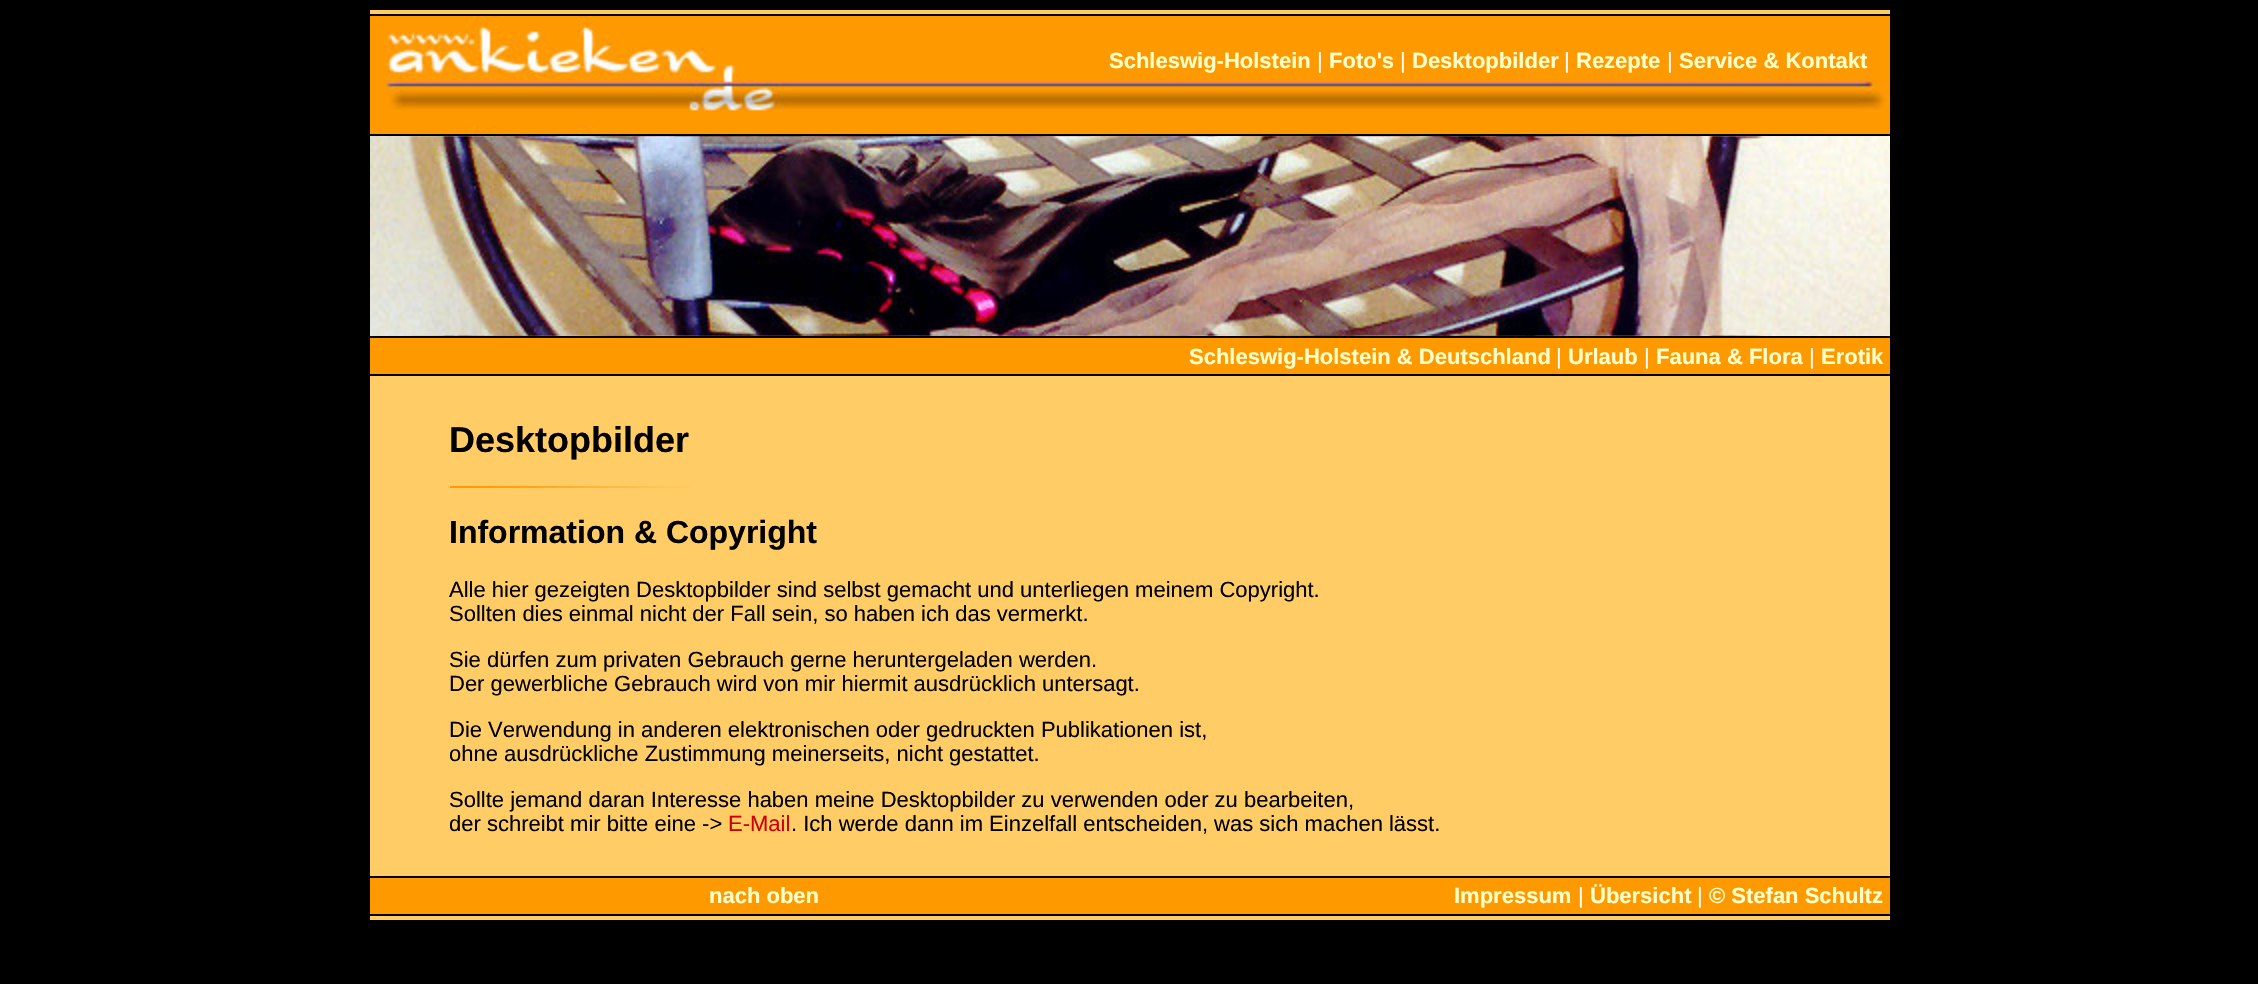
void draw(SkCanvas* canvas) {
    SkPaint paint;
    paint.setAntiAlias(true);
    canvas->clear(0xFF000000);
    paint.setColor(0xFFFFCC66);
    canvas->drawRect(SkRect::MakeXYWH(370, 10, 1520, 4), paint);
    paint.setColor(0xFFFF9900);
    canvas->drawRect(SkRect::MakeXYWH(370, 16, 15, 118), paint);
    canvas->drawImageRect(SkImages::DeferredFromEncodedData(SkData::MakeFromFileName("img1.png")), SkRect::MakeXYWH(385, 16, 1505, 118), SkSamplingOptions());
    SkFont font1(fontMgr->matchFamilyStyle("Liberation Sans", SkFontStyle::Bold()), 22);
    font1.setSubpixel(true);
    paint.setColor(0xFFFFFFCC);
    canvas->drawString("Schleswig-Holstein", 1109, 68, font1, paint);
    SkFont font2(fontMgr->matchFamilyStyle("Liberation Sans", SkFontStyle::Normal()), 22);
    font2.setSubpixel(true);
    paint.setColor(0xFFFFFFFF);
    canvas->drawString("|", 1317, 68, font2, paint);
    paint.setColor(0xFFFFFFCC);
    canvas->drawString("Foto's", 1329, 68, font1, paint);
    paint.setColor(0xFFFFFFFF);
    canvas->drawString("|", 1400, 68, font2, paint);
    paint.setColor(0xFFFFFFCC);
    canvas->drawString("Desktopbilder", 1412, 68, font1, paint);
    paint.setColor(0xFFFFFFFF);
    canvas->drawString("|", 1564, 68, font2, paint);
    paint.setColor(0xFFFFFFCC);
    canvas->drawString("Rezepte", 1576, 68, font1, paint);
    paint.setColor(0xFFFFFFFF);
    canvas->drawString("|", 1667, 68, font2, paint);
    paint.setColor(0xFFFFFFCC);
    canvas->drawString("Service & Kontakt", 1679, 68, font1, paint);
    canvas->drawImageRect(SkImages::DeferredFromEncodedData(SkData::MakeFromFileName("img2.png")), SkRect::MakeXYWH(370, 136, 1520, 200), SkSamplingOptions());
    paint.setColor(0xFFFF9900);
    canvas->drawRect(SkRect::MakeXYWH(370, 338, 1520, 36), paint);
    paint.setColor(0xFFFFFFCC);
    canvas->drawString("Schleswig-Holstein & Deutschland", 1189, 364, font1, paint);
    paint.setColor(0xFFFFFFFF);
    canvas->drawString("|", 1556, 364, font2, paint);
    paint.setColor(0xFFFFFFCC);
    canvas->drawString("Urlaub", 1568, 364, font1, paint);
    paint.setColor(0xFFFFFFFF);
    canvas->drawString("|", 1644, 364, font2, paint);
    paint.setColor(0xFFFFFFCC);
    canvas->drawString("Fauna & Flora", 1656, 364, font1, paint);
    paint.setColor(0xFFFFFFFF);
    canvas->drawString("|", 1809, 364, font2, paint);
    paint.setColor(0xFFFFFFCC);
    canvas->drawString("Erotik", 1821, 364, font1, paint);
    paint.setColor(0xFFFFCC66);
    canvas->drawRect(SkRect::MakeXYWH(370, 376, 1520, 500), paint);
    SkFont font3(fontMgr->matchFamilyStyle("Liberation Sans", SkFontStyle::Bold()), 36);
    font3.setSubpixel(true);
    paint.setColor(0xFF000000);
    canvas->drawString("Desktopbilder", 449, 452, font3, paint);
    canvas->drawImageRect(SkImages::DeferredFromEncodedData(SkData::MakeFromFileName("img3.png")), SkRect::MakeXYWH(450, 486, 241, 2), SkSamplingOptions());
    SkFont font4(fontMgr->matchFamilyStyle("Liberation Sans", SkFontStyle::Bold()), 32);
    font4.setSubpixel(true);
    canvas->drawString("Information & Copyright", 449, 543, font4, paint);
    canvas->drawString("Alle hier gezeigten Desktopbilder sind selbst gemacht und unterliegen meinem Copyright.", 449, 597, font2, paint);
    canvas->drawString("Sollten dies einmal nicht der Fall sein, so haben ich das vermerkt.", 449, 621, font2, paint);
    canvas->drawString("Sie dürfen zum privaten Gebrauch gerne heruntergeladen werden.", 449, 667, font2, paint);
    canvas->drawString("Der gewerbliche Gebrauch wird von mir hiermit ausdrücklich untersagt.", 449, 691, font2, paint);
    canvas->drawString("Die Verwendung in anderen elektronischen oder gedruckten Publikationen ist,", 449, 737, font2, paint);
    canvas->drawString("ohne ausdrückliche Zustimmung meinerseits, nicht gestattet.", 449, 761, font2, paint);
    canvas->drawString("Sollte jemand daran Interesse haben meine Desktopbilder zu verwenden oder zu bearbeiten,", 449, 807, font2, paint);
    canvas->drawString("der schreibt mir bitte eine ->", 449, 831, font2, paint);
    paint.setColor(0xFFCC0000);
    canvas->drawString("E-Mail", 728, 831, font2, paint);
    paint.setColor(0xFF000000);
    canvas->drawString(". Ich werde dann im Einzelfall entscheiden, was sich machen lässt.", 791, 831, font2, paint);
    paint.setColor(0xFFFF9900);
    canvas->drawRect(SkRect::MakeXYWH(370, 878, 1520, 36), paint);
    paint.setColor(0xFFFFFFCC);
    canvas->drawString("nach oben", 709, 903, font1, paint);
    canvas->drawString("Impressum", 1454, 903, font1, paint);
    paint.setColor(0xFFFFFFFF);
    canvas->drawString("|", 1578, 903, font2, paint);
    paint.setColor(0xFFFFFFCC);
    canvas->drawString("Übersicht", 1590, 903, font1, paint);
    paint.setColor(0xFFFFFFFF);
    canvas->drawString("|", 1697, 903, font2, paint);
    paint.setColor(0xFFFFFFCC);
    canvas->drawString("© Stefan Schultz", 1709, 903, font1, paint);
    paint.setColor(0xFFFFCC66);
    canvas->drawRect(SkRect::MakeXYWH(370, 916, 1520, 4), paint);
}
